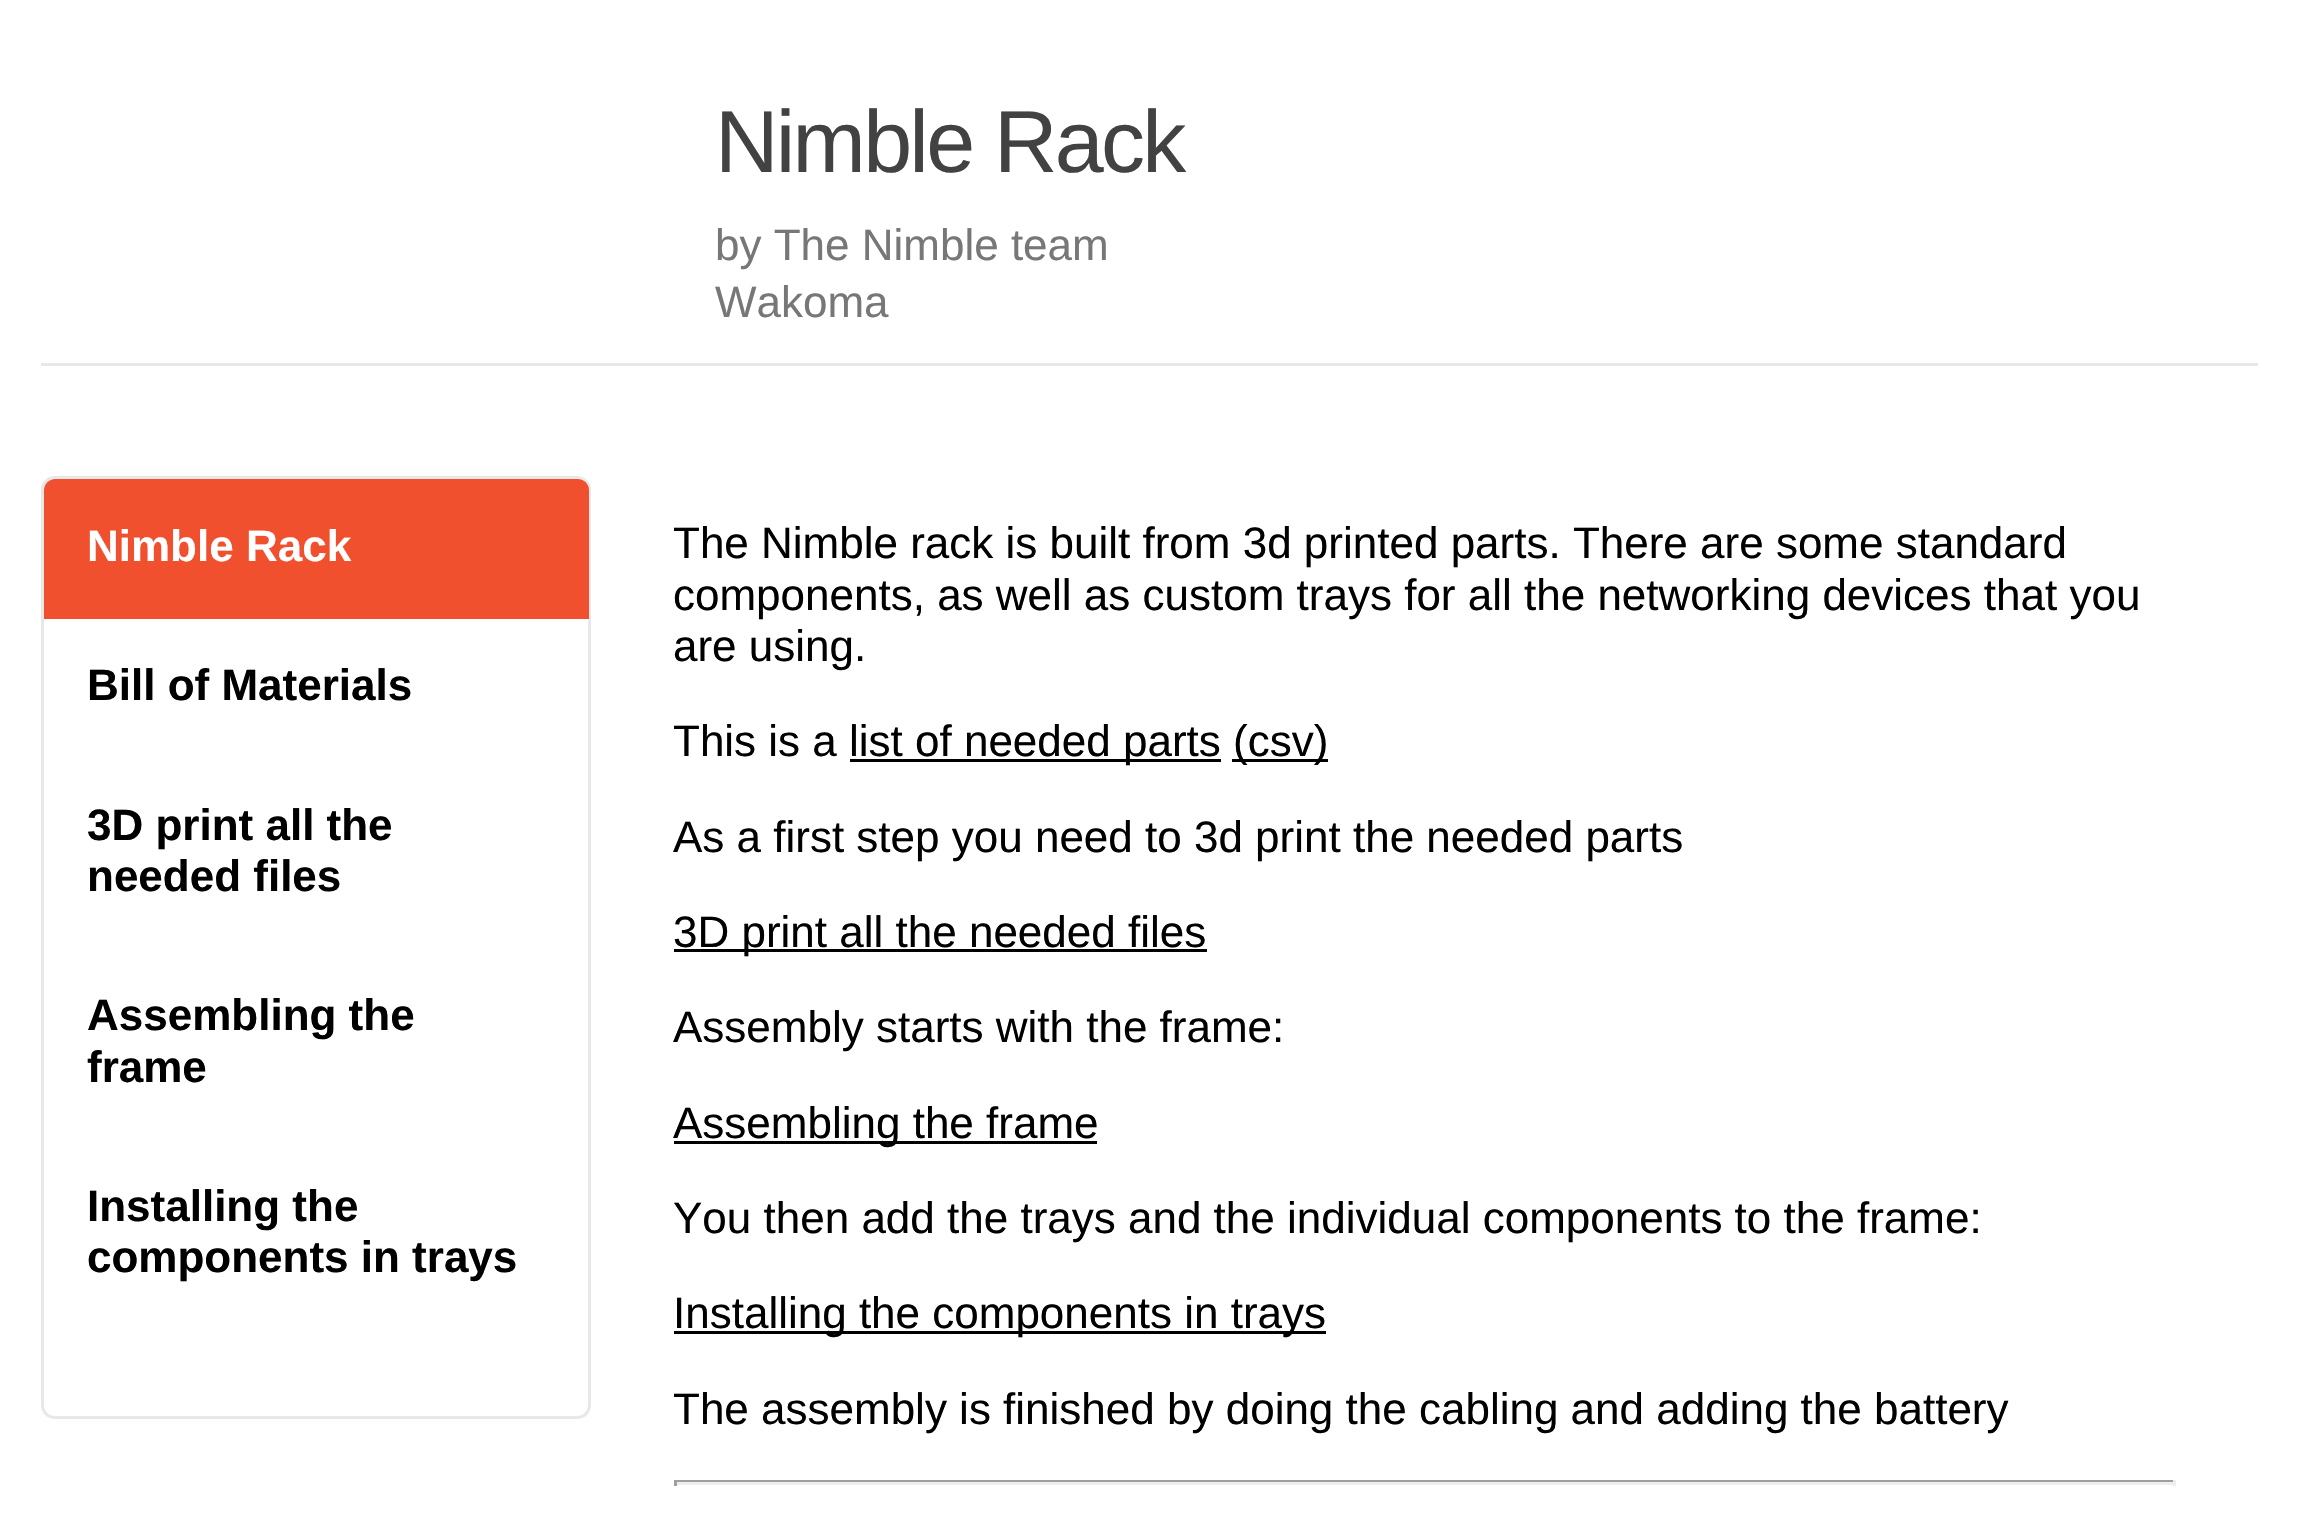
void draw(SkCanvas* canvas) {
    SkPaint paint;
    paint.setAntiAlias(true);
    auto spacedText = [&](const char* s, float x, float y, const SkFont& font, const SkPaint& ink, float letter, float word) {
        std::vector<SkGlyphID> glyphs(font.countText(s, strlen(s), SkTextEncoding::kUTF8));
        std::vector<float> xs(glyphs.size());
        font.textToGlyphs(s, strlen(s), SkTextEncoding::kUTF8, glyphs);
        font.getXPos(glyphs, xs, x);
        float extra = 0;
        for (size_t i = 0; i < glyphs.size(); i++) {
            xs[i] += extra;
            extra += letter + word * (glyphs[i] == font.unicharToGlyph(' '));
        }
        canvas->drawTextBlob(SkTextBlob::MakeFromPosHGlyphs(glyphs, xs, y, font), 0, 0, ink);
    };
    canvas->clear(0xFFFFFFFF);
    paint.setColor(0xFFE8E8E8);
    canvas->drawRect(SkRect::MakeXYWH(41, 363, 2217, 3), paint);
    SkFont font1(fontMgr->matchFamilyStyle("Liberation Sans", SkFontStyle::Normal()), 88);
    font1.setSubpixel(true);
    paint.setColor(0xFF424242);
    spacedText("Nimble Rack", 715, 172, font1, paint, -2.75f, 0);
    SkFont font2(fontMgr->matchFamilyStyle("Liberation Sans", SkFontStyle::Normal()), 44);
    font2.setSubpixel(true);
    paint.setColor(0xFF777777);
    canvas->drawString("by The Nimble team", 715, 260, font2, paint);
    canvas->drawString("Wakoma", 715, 317, font2, paint);
    paint.setStyle(SkPaint::kStroke_Style);
    paint.setStrokeWidth(3);
    paint.setColor(0xFFE8E8E8);
    canvas->drawRoundRect(SkRect::MakeXYWH(42.5f, 477.5f, 547, 940), 12.5f, 12.5f, paint);
    paint.setStyle(SkPaint::kFill_Style);
    paint.setColor(0xFFF1502F);
    canvas->drawPath(SkPathBuilder().moveTo(55, 479).lineTo(578, 479).cubicTo(584, 479, 589, 484, 589, 490).lineTo(589, 619).lineTo(44, 619).lineTo(44, 490).cubicTo(44, 484, 49, 479, 55, 479).close().detach(), paint);
    SkFont font3(fontMgr->matchFamilyStyle("Liberation Sans", SkFontStyle::Bold()), 44);
    font3.setSubpixel(true);
    paint.setColor(0xFFFFFFFF);
    canvas->drawString("Nimble Rack", 87, 561, font3, paint);
    paint.setColor(0xFF000000);
    canvas->drawString("Bill of Materials", 87, 700, font3, paint);
    canvas->drawString("3D print all the", 87, 840, font3, paint);
    canvas->drawString("needed files", 87, 891, font3, paint);
    canvas->drawString("Assembling the", 87, 1030, font3, paint);
    canvas->drawString("frame", 87, 1082, font3, paint);
    canvas->drawString("Installing the", 87, 1221, font3, paint);
    canvas->drawString("components in trays", 87, 1272, font3, paint);
    canvas->drawString("The Nimble rack is built from 3d printed parts. There are some standard", 673, 558, font2, paint);
    canvas->drawString("components, as well as custom trays for all the networking devices that you", 673, 610, font2, paint);
    canvas->drawString("are using.", 673, 661, font2, paint);
    canvas->drawString("This is a", 673, 756, font2, paint);
    canvas->drawRect(SkRect::MakeXYWH(850, 759, 371, 3), paint);
    canvas->drawString("list of needed parts", 849, 756, font2, paint);
    canvas->drawRect(SkRect::MakeXYWH(1232, 759, 96, 3), paint);
    canvas->drawString("(csv)", 1233, 756, font2, paint);
    canvas->drawString("As a first step you need to 3d print the needed parts", 673, 852, font2, paint);
    canvas->drawRect(SkRect::MakeXYWH(674, 949, 533, 3), paint);
    canvas->drawString("3D print all the needed files", 673, 947, font2, paint);
    canvas->drawString("Assembly starts with the frame:", 673, 1042, font2, paint);
    canvas->drawRect(SkRect::MakeXYWH(674, 1141, 423, 3), paint);
    canvas->drawString("Assembling the frame", 673, 1138, font2, paint);
    canvas->drawString("You then add the trays and the individual components to the frame:", 673, 1233, font2, paint);
    canvas->drawRect(SkRect::MakeXYWH(674, 1331, 652, 3), paint);
    canvas->drawString("Installing the components in trays", 673, 1328, font2, paint);
    canvas->drawString("The assembly is finished by doing the cabling and adding the battery", 673, 1424, font2, paint);
    paint.setColor(0xFF9F9F9F);
    canvas->drawRect(SkRect::MakeXYWH(674, 1480, 1501, 2), paint);
    paint.setColor(0xFFEEEEEE);
    canvas->drawRect(SkRect::MakeXYWH(2173, 1480, 3, 6), paint);
    canvas->drawRect(SkRect::MakeXYWH(674, 1482, 1501, 3), paint);
    paint.setColor(0xFF9F9F9F);
    canvas->drawRect(SkRect::MakeXYWH(674, 1480, 3, 6), paint);
}
